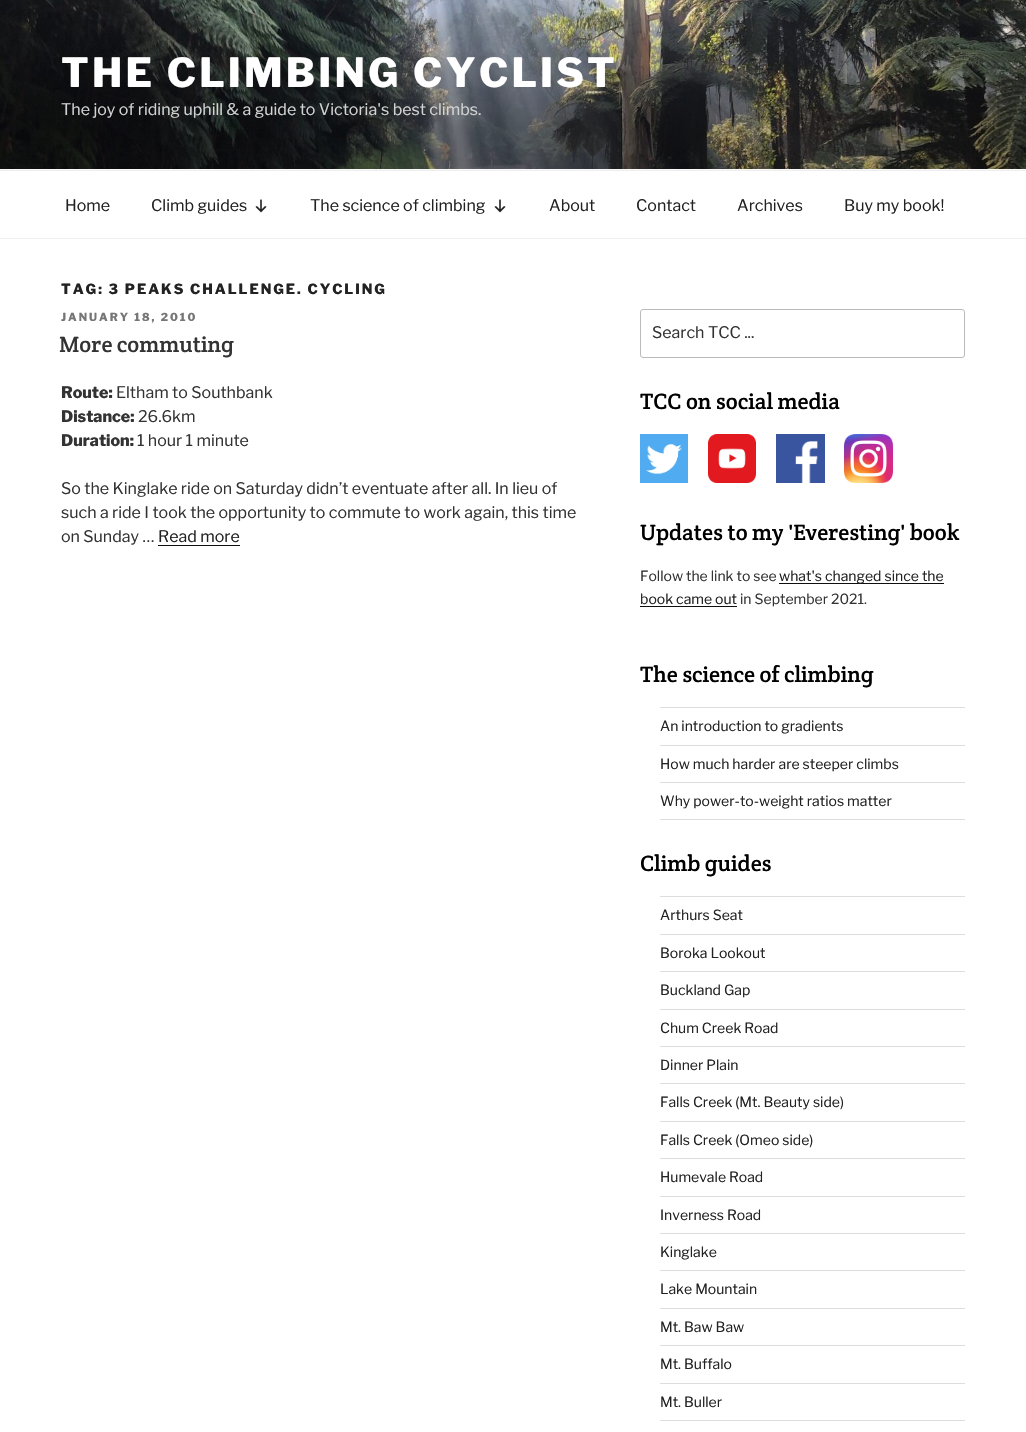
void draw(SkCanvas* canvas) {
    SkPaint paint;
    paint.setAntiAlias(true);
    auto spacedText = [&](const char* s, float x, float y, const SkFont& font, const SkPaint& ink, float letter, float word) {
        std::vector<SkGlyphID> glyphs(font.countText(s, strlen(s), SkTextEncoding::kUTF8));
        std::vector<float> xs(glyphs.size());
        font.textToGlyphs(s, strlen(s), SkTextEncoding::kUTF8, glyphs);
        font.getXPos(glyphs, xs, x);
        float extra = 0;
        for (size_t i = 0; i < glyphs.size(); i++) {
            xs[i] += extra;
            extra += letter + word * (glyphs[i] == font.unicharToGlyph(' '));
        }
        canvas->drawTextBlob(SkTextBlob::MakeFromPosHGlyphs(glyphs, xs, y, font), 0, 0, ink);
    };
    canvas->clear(0xFFFFFFFF);
    paint.setColor(0xFFFAFAFA);
    canvas->drawRect(SkRect::MakeXYWH(0, 169, 1026, 1), paint);
    canvas->drawImageRect(SkImages::DeferredFromEncodedData(SkData::MakeFromFileName("img1.png")), SkRect::MakeXYWH(0, 0, 1026, 169), SkSamplingOptions());
    SkFont font1(fontMgr->matchFamilyStyle("Libre Franklin", SkFontStyle(800, SkFontStyle::kNormal_Width, SkFontStyle::kUpright_Slant)), 40);
    font1.setSubpixel(true);
    paint.setColor(0xFFFFFFFF);
    spacedText("THE CLIMBING CYCLIST", 61, 87, font1, paint, 3.25f, 0);
    SkFont font2(fontMgr->matchFamilyStyle("Libre Franklin", SkFontStyle::Normal()), 16);
    font2.setSubpixel(true);
    paint.setColor(0xFFD2D3D3);
    canvas->drawString("The joy of riding uphill & a guide to Victoria's best climbs.", 61, 115, font2, paint);
    paint.setColor(0xFFEEEEEE);
    canvas->drawRect(SkRect::MakeXYWH(0, 170, 1026, 1), paint);
    canvas->drawRect(SkRect::MakeXYWH(0, 238, 1026, 1), paint);
    paint.setColor(0xFF222222);
    canvas->drawString("Home", 65, 211, font2, paint);
    canvas->drawString("Climb guides", 151, 211, font2, paint);
    canvas->drawImageRect(SkImages::DeferredFromEncodedData(SkData::MakeFromFileName("img2.png")), SkRect::MakeXYWH(255, 199, 12, 14), SkSamplingOptions());
    canvas->drawString("The science of climbing", 310, 211, font2, paint);
    canvas->drawImageRect(SkImages::DeferredFromEncodedData(SkData::MakeFromFileName("img2.png")), SkRect::MakeXYWH(494, 199, 12, 14), SkSamplingOptions());
    canvas->drawString("About", 549, 211, font2, paint);
    canvas->drawString("Contact", 636, 211, font2, paint);
    canvas->drawString("Archives", 737, 211, font2, paint);
    canvas->drawString("Buy my book!", 844, 211, font2, paint);
    SkFont font3(fontMgr->matchFamilyStyle("Libre Franklin", SkFontStyle(800, SkFontStyle::kNormal_Width, SkFontStyle::kUpright_Slant)), 14);
    font3.setSubpixel(true);
    spacedText("TAG: 3 PEAKS CHALLENGE. CYCLING", 61, 294, font3, paint, 1.95f, 0);
    SkFont font4(fontMgr->matchFamilyStyle("Libre Franklin", SkFontStyle(800, SkFontStyle::kNormal_Width, SkFontStyle::kUpright_Slant)), 11);
    font4.setSubpixel(true);
    paint.setColor(0xFF767676);
    spacedText("JANUARY 18, 2010", 61, 321, font4, paint, 2, 0);
    SkFont font5(fontMgr->matchFamilyStyle("Crete Round", SkFontStyle::Normal()), 22.4f);
    font5.setSubpixel(true);
    paint.setColor(0xFF333333);
    canvas->drawString("More commuting", 59, 352, font5, paint);
    SkFont font6(fontMgr->matchFamilyStyle("Libre Franklin", SkFontStyle(800, SkFontStyle::kNormal_Width, SkFontStyle::kUpright_Slant)), 16);
    font6.setSubpixel(true);
    canvas->drawString("Route:", 61, 398, font6, paint);
    canvas->drawString("Eltham to Southbank", 116, 398, font2, paint);
    canvas->drawString("Distance:", 61, 422, font6, paint);
    canvas->drawString("26.6km", 138, 422, font2, paint);
    canvas->drawString("Duration:", 61, 446, font6, paint);
    canvas->drawString("1 hour 1 minute", 137, 446, font2, paint);
    canvas->drawString("So the Kinglake ride on Saturday didn’t eventuate after all. In lieu of", 61, 494, font2, paint);
    canvas->drawString("such a ride I took the opportunity to commute to work again, this time", 61, 518, font2, paint);
    canvas->drawString("on Sunday …", 61, 542, font2, paint);
    paint.setColor(0xFF222222);
    canvas->drawString("Read more", 158, 542, font2, paint);
    paint.setColor(0xFF0F0F0F);
    canvas->drawRect(SkRect::MakeXYWH(158, 545, 82, 1), paint);
    paint.setStyle(SkPaint::kStroke_Style);
    paint.setStrokeWidth(1);
    paint.setColor(0xFFBBBBBB);
    canvas->drawRoundRect(SkRect::MakeXYWH(640.5f, 309.5f, 324, 48), 2.5f, 2.5f, paint);
    paint.setStyle(SkPaint::kFill_Style);
    paint.setColor(0xFF333333);
    canvas->drawString("Search TCC ...", 652, 338, font2, paint);
    paint.setColor(0xFF000000);
    canvas->drawString("TCC on social media", 640, 409, font5, paint);
    canvas->drawImageRect(SkImages::DeferredFromEncodedData(SkData::MakeFromFileName("img3.png")), SkRect::MakeXYWH(640, 434, 48, 49), SkSamplingOptions());
    canvas->drawImageRect(SkImages::DeferredFromEncodedData(SkData::MakeFromFileName("img4.png")), SkRect::MakeXYWH(708, 434, 48, 49), SkSamplingOptions());
    canvas->drawImageRect(SkImages::DeferredFromEncodedData(SkData::MakeFromFileName("img5.png")), SkRect::MakeXYWH(776, 434, 49, 49), SkSamplingOptions());
    canvas->drawImageRect(SkImages::DeferredFromEncodedData(SkData::MakeFromFileName("img6.png")), SkRect::MakeXYWH(844, 434, 49, 49), SkSamplingOptions());
    canvas->drawString("Updates to my 'Everesting' book", 640, 540, font5, paint);
    SkFont font7(fontMgr->matchFamilyStyle("Libre Franklin", SkFontStyle::Normal()), 14);
    font7.setSubpixel(true);
    paint.setColor(0xFF333333);
    canvas->drawString("Follow the link to see", 640, 581, font7, paint);
    paint.setColor(0xFF0F0F0F);
    canvas->drawRect(SkRect::MakeXYWH(779, 583, 165, 1), paint);
    paint.setColor(0xFF222222);
    canvas->drawString("what's changed since the", 779, 581, font7, paint);
    canvas->drawString("book came out", 640, 604, font7, paint);
    paint.setColor(0xFF0F0F0F);
    canvas->drawRect(SkRect::MakeXYWH(640, 606, 97, 1), paint);
    paint.setColor(0xFF333333);
    canvas->drawString("in September 2021.", 740, 604, font7, paint);
    paint.setColor(0xFF000000);
    canvas->drawString("The science of climbing", 640, 682, font5, paint);
    paint.setColor(0xFFDDDDDD);
    canvas->drawRect(SkRect::MakeXYWH(660, 707, 305, 1), paint);
    canvas->drawRect(SkRect::MakeXYWH(660, 745, 305, 1), paint);
    paint.setColor(0xFF222222);
    canvas->drawString("An introduction to gradients", 660, 731, font7, paint);
    paint.setColor(0xFFDDDDDD);
    canvas->drawRect(SkRect::MakeXYWH(660, 782, 305, 1), paint);
    paint.setColor(0xFF222222);
    canvas->drawString("How much harder are steeper climbs", 660, 769, font7, paint);
    paint.setColor(0xFFDDDDDD);
    canvas->drawRect(SkRect::MakeXYWH(660, 819, 305, 1), paint);
    paint.setColor(0xFF222222);
    canvas->drawString("Why power-to-weight ratios matter", 660, 806, font7, paint);
    paint.setColor(0xFF000000);
    canvas->drawString("Climb guides", 640, 871, font5, paint);
    paint.setColor(0xFFDDDDDD);
    canvas->drawRect(SkRect::MakeXYWH(660, 896, 305, 1), paint);
    canvas->drawRect(SkRect::MakeXYWH(660, 934, 305, 1), paint);
    paint.setColor(0xFF222222);
    canvas->drawString("Arthurs Seat", 660, 920, font7, paint);
    paint.setColor(0xFFDDDDDD);
    canvas->drawRect(SkRect::MakeXYWH(660, 971, 305, 1), paint);
    paint.setColor(0xFF222222);
    canvas->drawString("Boroka Lookout", 660, 958, font7, paint);
    paint.setColor(0xFFDDDDDD);
    canvas->drawRect(SkRect::MakeXYWH(660, 1009, 305, 1), paint);
    paint.setColor(0xFF222222);
    canvas->drawString("Buckland Gap", 660, 995, font7, paint);
    paint.setColor(0xFFDDDDDD);
    canvas->drawRect(SkRect::MakeXYWH(660, 1046, 305, 1), paint);
    paint.setColor(0xFF222222);
    canvas->drawString("Chum Creek Road", 660, 1033, font7, paint);
    paint.setColor(0xFFDDDDDD);
    canvas->drawRect(SkRect::MakeXYWH(660, 1083, 305, 1), paint);
    paint.setColor(0xFF222222);
    canvas->drawString("Dinner Plain", 660, 1070, font7, paint);
    paint.setColor(0xFFDDDDDD);
    canvas->drawRect(SkRect::MakeXYWH(660, 1121, 305, 1), paint);
    paint.setColor(0xFF222222);
    canvas->drawString("Falls Creek (Mt. Beauty side)", 660, 1107, font7, paint);
    paint.setColor(0xFFDDDDDD);
    canvas->drawRect(SkRect::MakeXYWH(660, 1158, 305, 1), paint);
    paint.setColor(0xFF222222);
    canvas->drawString("Falls Creek (Omeo side)", 660, 1145, font7, paint);
    paint.setColor(0xFFDDDDDD);
    canvas->drawRect(SkRect::MakeXYWH(660, 1196, 305, 1), paint);
    paint.setColor(0xFF222222);
    canvas->drawString("Humevale Road", 660, 1182, font7, paint);
    paint.setColor(0xFFDDDDDD);
    canvas->drawRect(SkRect::MakeXYWH(660, 1233, 305, 1), paint);
    paint.setColor(0xFF222222);
    canvas->drawString("Inverness Road", 660, 1220, font7, paint);
    paint.setColor(0xFFDDDDDD);
    canvas->drawRect(SkRect::MakeXYWH(660, 1270, 305, 1), paint);
    paint.setColor(0xFF222222);
    canvas->drawString("Kinglake", 660, 1257, font7, paint);
    paint.setColor(0xFFDDDDDD);
    canvas->drawRect(SkRect::MakeXYWH(660, 1308, 305, 1), paint);
    paint.setColor(0xFF222222);
    canvas->drawString("Lake Mountain", 660, 1294, font7, paint);
    paint.setColor(0xFFDDDDDD);
    canvas->drawRect(SkRect::MakeXYWH(660, 1345, 305, 1), paint);
    paint.setColor(0xFF222222);
    canvas->drawString("Mt. Baw Baw", 660, 1332, font7, paint);
    paint.setColor(0xFFDDDDDD);
    canvas->drawRect(SkRect::MakeXYWH(660, 1383, 305, 1), paint);
    paint.setColor(0xFF222222);
    canvas->drawString("Mt. Buffalo", 660, 1369, font7, paint);
    paint.setColor(0xFFDDDDDD);
    canvas->drawRect(SkRect::MakeXYWH(660, 1420, 305, 1), paint);
    paint.setColor(0xFF222222);
    canvas->drawString("Mt. Buller", 660, 1407, font7, paint);
}
